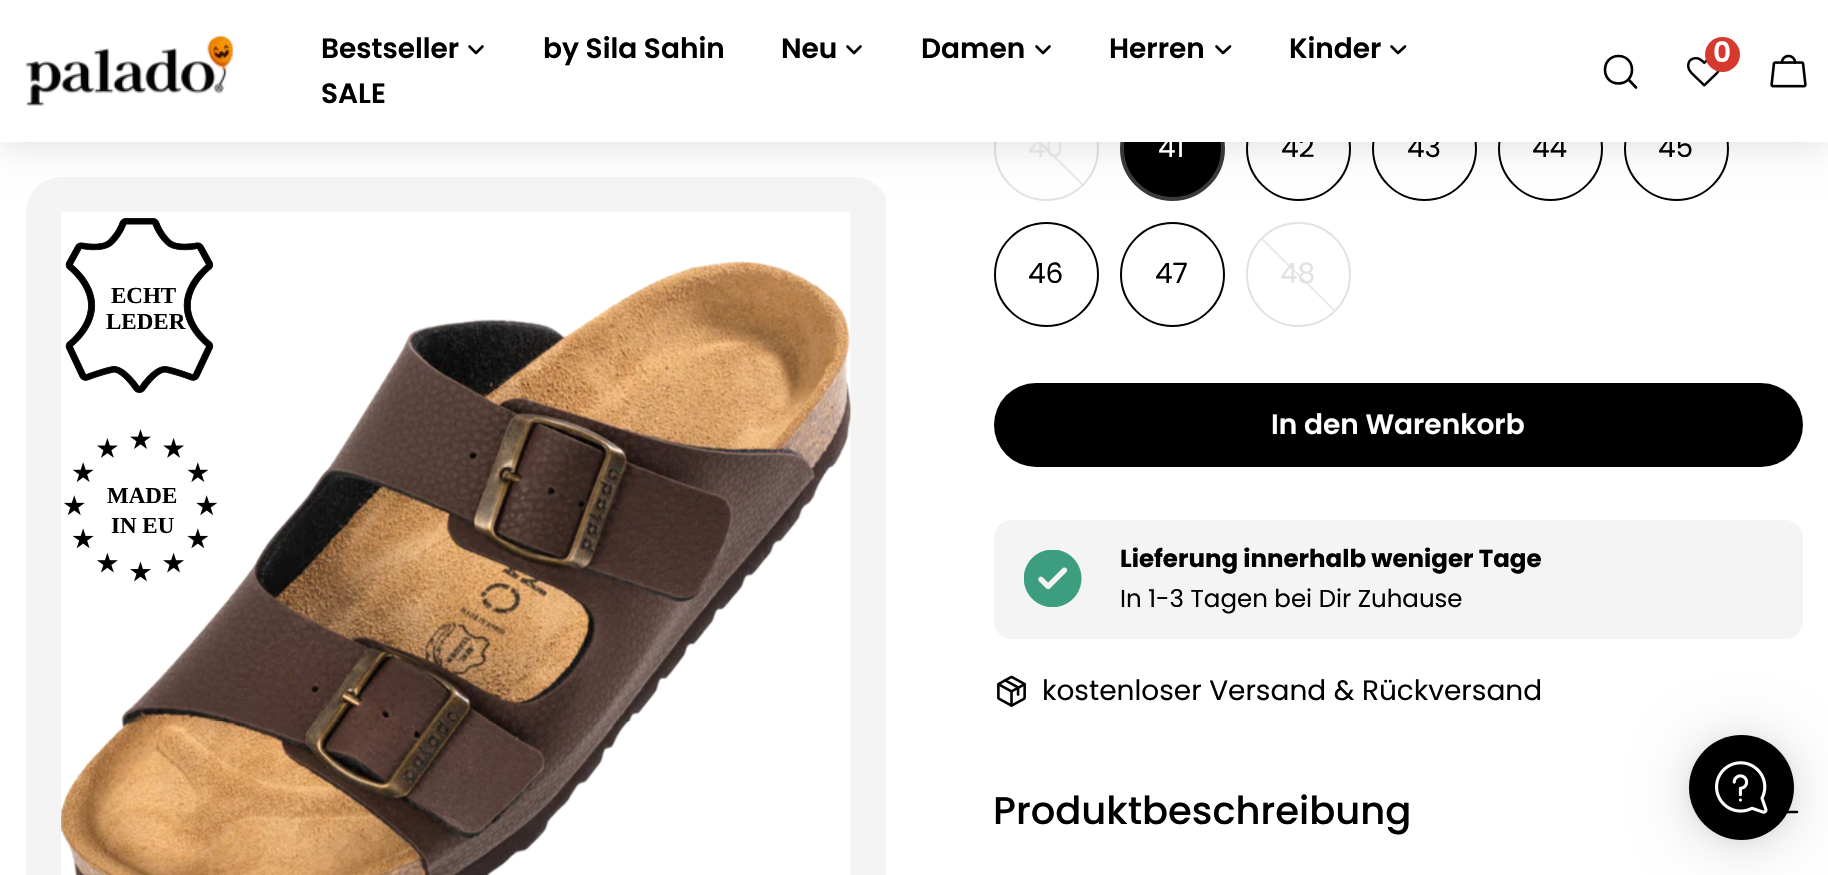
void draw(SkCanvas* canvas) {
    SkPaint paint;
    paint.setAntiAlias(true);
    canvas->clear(0xFFFFFFFF);
    canvas->save();
    canvas->clipPath(SkPathBuilder().moveTo(61, 177).lineTo(854, 177).cubicTo(873.5f, 177, 889, 192.5f, 889, 212).lineTo(889, 1005).cubicTo(889, 1024.5f, 873.5f, 1040, 854, 1040).lineTo(61, 1040).cubicTo(41.5f, 1040, 26, 1024.5f, 26, 1005).lineTo(26, 212).cubicTo(26, 192.5f, 41.5f, 177, 61, 177).close().detach(), true);
    canvas->clipPath(SkPathBuilder().moveTo(61, 177).lineTo(854, 177).cubicTo(873.5f, 177, 889, 192.5f, 889, 212).lineTo(889, 1005).cubicTo(889, 1024.5f, 873.5f, 1040, 854, 1040).lineTo(61, 1040).cubicTo(41.5f, 1040, 26, 1024.5f, 26, 1005).lineTo(26, 212).cubicTo(26, 192.5f, 41.5f, 177, 61, 177).close().detach(), true);
    paint.setColor(0xFFF4F4F4);
    canvas->drawPath(SkPathBuilder().moveTo(61, 177).lineTo(886, 177).lineTo(886, 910).lineTo(61, 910).cubicTo(41.5f, 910, 26, 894.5f, 26, 875).lineTo(26, 212).cubicTo(26, 192.5f, 41.5f, 177, 61, 177).close().detach(), paint);
    canvas->restore();
    paint.setStyle(SkPaint::kStroke_Style);
    paint.setStrokeWidth(2);
    paint.setColor(0xFFE2E2E2);
    canvas->drawCircle(1046.5f, 148.5f, 51.5f, paint);
    paint.setStyle(SkPaint::kFill_Style);
    {
        const SkColor colors[] = {0x00E2E2E2, 0xFFE2E2E2, 0x00E2E2E2};
        const float stops[] = {0.49f, 0.5f, 0.51f};
        const SkPoint ends[] = {{1097, 98}, {996, 200}};
        paint.setShader(SkGradientShader::MakeLinear(ends, colors, stops, 3, SkTileMode::kClamp));
        paint.setAlpha(255);
    }
    canvas->drawRoundRect(SkRect::MakeXYWH(996, 98, 101, 102), 50.5f, 50.5f, paint);
    paint.setShader(nullptr);
    paint.setColor(0xFF000000);
    canvas->drawCircle(1172.5f, 148.5f, 50.5f, paint);
    paint.setStyle(SkPaint::kStroke_Style);
    paint.setStrokeWidth(4);
    paint.setColor(0xFF3A3A3A);
    canvas->drawCircle(1172.5f, 148.5f, 50.5f, paint);
    paint.setStrokeWidth(2);
    paint.setColor(0xFF000000);
    canvas->drawCircle(1298.5f, 148.5f, 51.5f, paint);
    canvas->drawCircle(1424.5f, 148.5f, 51.5f, paint);
    canvas->drawCircle(1550.5f, 148.5f, 51.5f, paint);
    canvas->drawCircle(1676.5f, 148.5f, 51.5f, paint);
    paint.setStyle(SkPaint::kFill_Style);
    paint.setColor(0x1A000000);
    paint.setMaskFilter(SkMaskFilter::MakeBlur(kNormal_SkBlurStyle, 16));
    canvas->drawRect(SkRect::MakeXYWH(0, 7, 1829, 142), paint);
    paint.setMaskFilter(nullptr);
    SkFont font1(fontMgr->matchFamilyStyle("Poppins", SkFontStyle::Normal()), 28);
    font1.setSubpixel(true);
    paint.setColor(0xFFE2E2E2);
    canvas->drawString("40", 1028, 157, font1, paint);
    paint.setColor(0xFF000000);
    canvas->drawString("42", 1281, 157, font1, paint);
    canvas->drawString("43", 1407, 157, font1, paint);
    canvas->drawString("44", 1532, 157, font1, paint);
    canvas->drawString("45", 1658, 157, font1, paint);
    paint.setColor(0xFFFFFFFF);
    canvas->drawRect(SkRect::MakeXYWH(0, 0, 1828, 142), paint);
    canvas->drawImageRect(SkImages::DeferredFromEncodedData(SkData::MakeFromFileName("img1.png")), SkRect::MakeXYWH(26, 36, 207, 70), SkSamplingOptions());
    SkFont font2(fontMgr->matchFamilyStyle("Poppins", SkFontStyle(600, SkFontStyle::kNormal_Width, SkFontStyle::kUpright_Slant)), 28);
    font2.setSubpixel(true);
    paint.setColor(0xFF000000);
    canvas->drawString("Bestseller", 321, 58, font2, paint);
    paint.setStyle(SkPaint::kStroke_Style);
    paint.setStrokeWidth(2.6f);
    paint.setStrokeCap(SkPaint::kRound_Cap);
    paint.setStrokeJoin(SkPaint::kRound_Join);
    canvas->drawPath(SkPathBuilder().moveTo(482.5f, 46.5f).lineTo(476, 53).lineTo(469.5f, 46.5f).detach(), paint);
    paint.setStyle(SkPaint::kFill_Style);
    canvas->drawString("by Sila Sahin", 543, 58, font2, paint);
    canvas->drawString("Neu", 781, 58, font2, paint);
    paint.setStyle(SkPaint::kStroke_Style);
    canvas->drawPath(SkPathBuilder().moveTo(860.5f, 46.5f).lineTo(854, 53).lineTo(847.5f, 46.5f).detach(), paint);
    paint.setStyle(SkPaint::kFill_Style);
    canvas->drawString("Damen", 921, 58, font2, paint);
    paint.setStyle(SkPaint::kStroke_Style);
    canvas->drawPath(SkPathBuilder().moveTo(1049.5f, 46.5f).lineTo(1043, 53).lineTo(1036.5f, 46.5f).detach(), paint);
    paint.setStyle(SkPaint::kFill_Style);
    canvas->drawString("Herren", 1109, 58, font2, paint);
    paint.setStyle(SkPaint::kStroke_Style);
    canvas->drawPath(SkPathBuilder().moveTo(1230, 46.5f).lineTo(1223, 53).lineTo(1216.5f, 46.5f).detach(), paint);
    paint.setStyle(SkPaint::kFill_Style);
    canvas->drawString("Kinder", 1289, 58, font2, paint);
    paint.setStyle(SkPaint::kStroke_Style);
    canvas->drawPath(SkPathBuilder().moveTo(1405, 46.5f).lineTo(1398, 53).lineTo(1391.5f, 46.5f).detach(), paint);
    paint.setStyle(SkPaint::kFill_Style);
    canvas->drawString("SALE", 321, 103, font2, paint);
    canvas->drawImageRect(SkImages::DeferredFromEncodedData(SkData::MakeFromFileName("img2.png")), SkRect::MakeXYWH(1687, 56, 33, 31), SkSamplingOptions());
    paint.setColor(0xFFD63A2F);
    canvas->drawCircle(1722.5f, 54.5f, 17.5f, paint);
    paint.setColor(0xFFFFFFFF);
    canvas->drawString("0", 1713, 62, font2, paint);
    paint.setStyle(SkPaint::kStroke_Style);
    paint.setColor(0xFF000000);
    canvas->drawPath(SkPathBuilder().moveTo(1618.5f, 83.5f).cubicTo(1636.5f, 83.5f, 1636.5f, 56, 1618.5f, 56).cubicTo(1600.5f, 56, 1600.5f, 83.5f, 1618.5f, 83.5f).close().moveTo(1628.5f, 79.5f).lineTo(1636, 87.5f).detach(), paint);
    canvas->drawImageRect(SkImages::DeferredFromEncodedData(SkData::MakeFromFileName("img3.png")), SkRect::MakeXYWH(1770, 54, 37, 34), SkSamplingOptions());
    canvas->drawImageRect(SkImages::DeferredFromEncodedData(SkData::MakeFromFileName("img4.png")), SkRect::MakeXYWH(61, 212, 790, 663), SkSamplingOptions());
    SkFont font3(fontMgr->matchFamilyStyle("Liberation Serif", SkFontStyle::Bold()), 23);
    font3.setSubpixel(true);
    paint.setStyle(SkPaint::kFill_Style);
    canvas->drawString("ECHT", 111, 303, font3, paint);
    canvas->drawString("LEDER", 106, 329, font3, paint);
    canvas->drawImageRect(SkImages::DeferredFromEncodedData(SkData::MakeFromFileName("img5.png")), SkRect::MakeXYWH(65, 218, 149, 175), SkSamplingOptions());
    canvas->drawString("MADE", 107, 503, font3, paint);
    canvas->drawString("IN EU", 111, 533, font3, paint);
    canvas->drawImageRect(SkImages::DeferredFromEncodedData(SkData::MakeFromFileName("img6.png")), SkRect::MakeXYWH(64, 429, 153, 153), SkSamplingOptions());
    paint.setColor(0xFFFFFFFF);
    canvas->drawString("41", 1158, 157, font1, paint);
    paint.setStyle(SkPaint::kStroke_Style);
    paint.setStrokeWidth(2);
    paint.setStrokeCap(SkPaint::kButt_Cap);
    paint.setStrokeJoin(SkPaint::kMiter_Join);
    paint.setColor(0xFF000000);
    canvas->drawCircle(1046.5f, 274.5f, 51.5f, paint);
    paint.setStyle(SkPaint::kFill_Style);
    canvas->drawString("46", 1028, 283, font1, paint);
    paint.setStyle(SkPaint::kStroke_Style);
    canvas->drawCircle(1172.5f, 274.5f, 51.5f, paint);
    paint.setStyle(SkPaint::kFill_Style);
    canvas->drawString("47", 1155, 283, font1, paint);
    paint.setStyle(SkPaint::kStroke_Style);
    paint.setColor(0xFFE2E2E2);
    canvas->drawCircle(1298.5f, 274.5f, 51.5f, paint);
    paint.setStyle(SkPaint::kFill_Style);
    {
        const SkColor colors[] = {0x00E2E2E2, 0xFFE2E2E2, 0x00E2E2E2};
        const float stops[] = {0.49f, 0.5f, 0.51f};
        const SkPoint ends[] = {{1349, 224}, {1248, 326}};
        paint.setShader(SkGradientShader::MakeLinear(ends, colors, stops, 3, SkTileMode::kClamp));
        paint.setAlpha(255);
    }
    canvas->drawRoundRect(SkRect::MakeXYWH(1248, 224, 101, 102), 50.5f, 50.5f, paint);
    paint.setShader(nullptr);
    paint.setColor(0xFFE2E2E2);
    canvas->drawString("48", 1280, 283, font1, paint);
    paint.setColor(0xFF000000);
    canvas->drawRoundRect(SkRect::MakeXYWH(994, 383, 809, 84), 42, 42, paint);
    paint.setColor(0xFFFFFFFF);
    canvas->drawString("In den Warenkorb", 1271, 434, font2, paint);
    paint.setColor(0xFFF4F4F5);
    canvas->drawRoundRect(SkRect::MakeXYWH(994, 520, 809, 119), 18, 18, paint);
    canvas->drawImageRect(SkImages::DeferredFromEncodedData(SkData::MakeFromFileName("img7.png")), SkRect::MakeXYWH(1024, 550, 58, 57), SkSamplingOptions());
    SkFont font4(fontMgr->matchFamilyStyle("Poppins", SkFontStyle::Bold()), 24.5f);
    font4.setSubpixel(true);
    paint.setColor(0xFF000000);
    canvas->drawString("Lieferung innerhalb weniger Tage", 1120, 567, font4, paint);
    SkFont font5(fontMgr->matchFamilyStyle("Poppins", SkFontStyle::Normal()), 24.5f);
    font5.setSubpixel(true);
    canvas->drawString("In 1-3 Tagen bei Dir Zuhause", 1120, 607, font5, paint);
    canvas->drawImageRect(SkImages::DeferredFromEncodedData(SkData::MakeFromFileName("img8.png")), SkRect::MakeXYWH(997, 675, 29, 32), SkSamplingOptions());
    canvas->drawString("kostenloser Versand & Rückversand", 1042, 700, font1, paint);
    SkFont font6(fontMgr->matchFamilyStyle("Poppins", SkFontStyle(500, SkFontStyle::kNormal_Width, SkFontStyle::kUpright_Slant)), 38.5f);
    font6.setSubpixel(true);
    canvas->drawString("Produktbeschreibung", 993, 824, font6, paint);
    paint.setStyle(SkPaint::kStroke_Style);
    paint.setStrokeWidth(2.6f);
    paint.setStrokeCap(SkPaint::kRound_Cap);
    paint.setStrokeJoin(SkPaint::kRound_Join);
    canvas->drawPath(SkPathBuilder().moveTo(1773, 812).lineTo(1797, 812).moveTo(1773, 812).lineTo(1797, 812).detach(), paint);
    paint.setStyle(SkPaint::kFill_Style);
    paint.setColor(0x29000000);
    paint.setMaskFilter(SkMaskFilter::MakeBlur(kNormal_SkBlurStyle, 28));
    canvas->drawRoundRect(SkRect::MakeXYWH(1689, 739, 105, 105), 52.5f, 52.5f, paint);
    paint.setMaskFilter(nullptr);
    paint.setColor(0x0F000000);
    paint.setMaskFilter(SkMaskFilter::MakeBlur(kNormal_SkBlurStyle, 5));
    canvas->drawRoundRect(SkRect::MakeXYWH(1689, 737, 105, 105), 52.5f, 52.5f, paint);
    paint.setMaskFilter(nullptr);
    paint.setColor(0xFF000000);
    canvas->drawCircle(1741.5f, 787.5f, 52.5f, paint);
    canvas->drawImageRect(SkImages::DeferredFromEncodedData(SkData::MakeFromFileName("img9.png")), SkRect::MakeXYWH(1715, 761, 53, 53), SkSamplingOptions());
}
